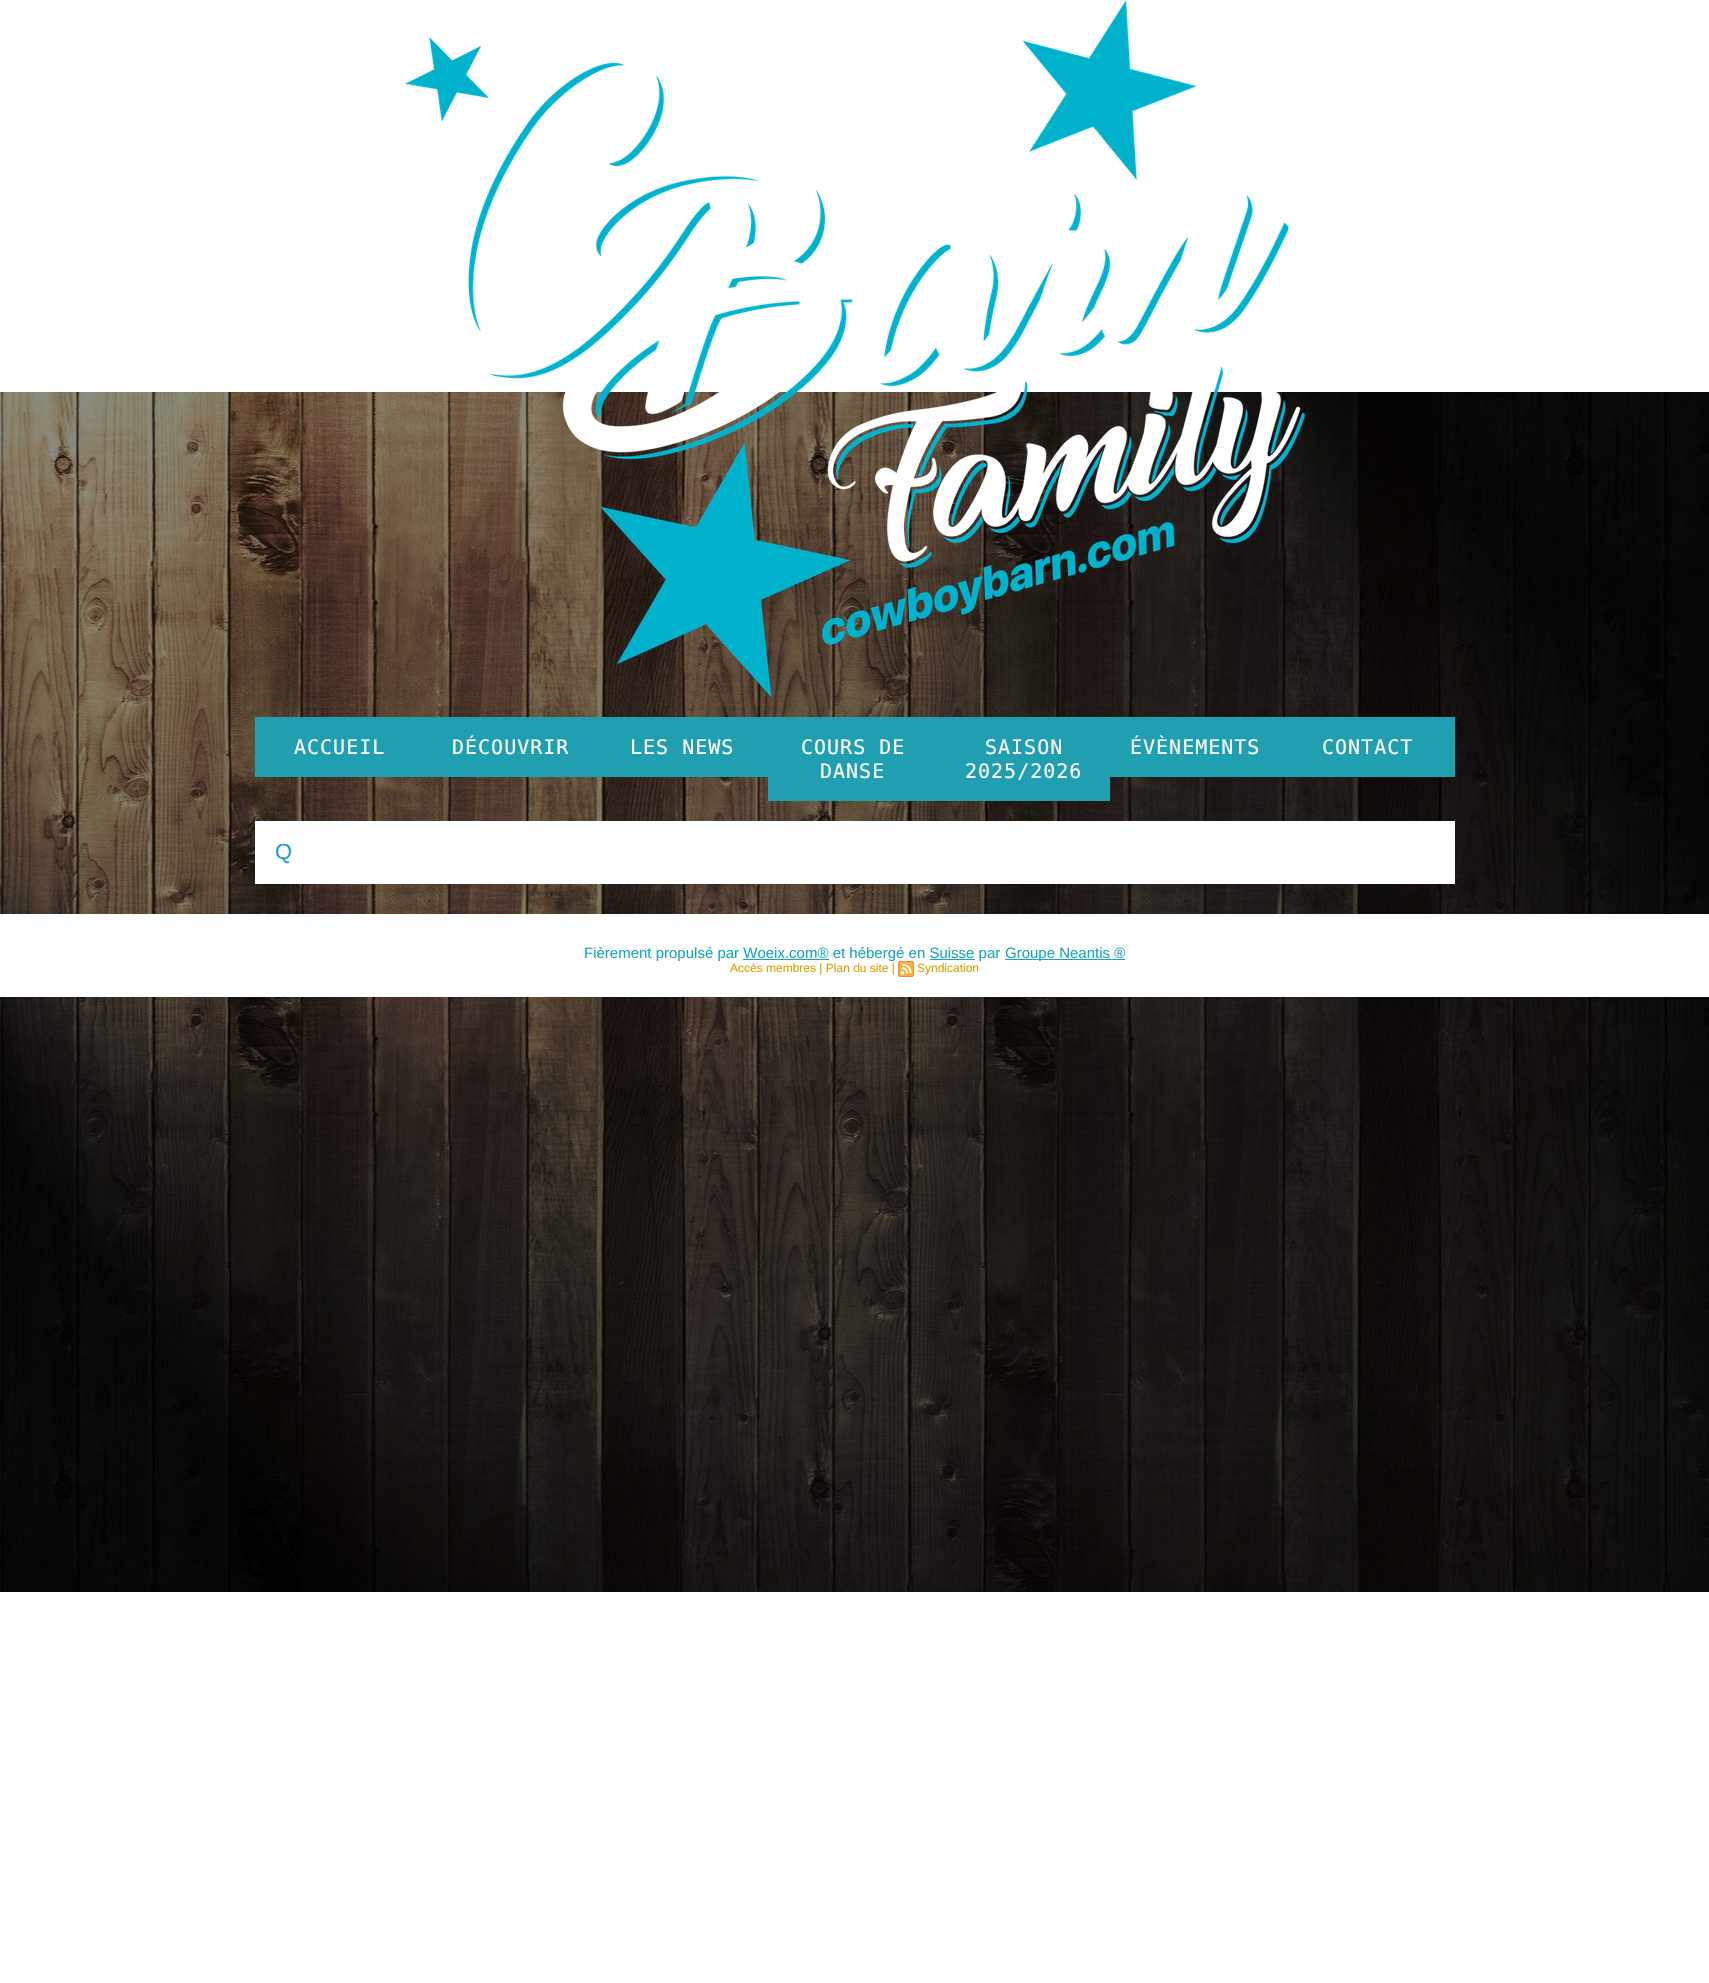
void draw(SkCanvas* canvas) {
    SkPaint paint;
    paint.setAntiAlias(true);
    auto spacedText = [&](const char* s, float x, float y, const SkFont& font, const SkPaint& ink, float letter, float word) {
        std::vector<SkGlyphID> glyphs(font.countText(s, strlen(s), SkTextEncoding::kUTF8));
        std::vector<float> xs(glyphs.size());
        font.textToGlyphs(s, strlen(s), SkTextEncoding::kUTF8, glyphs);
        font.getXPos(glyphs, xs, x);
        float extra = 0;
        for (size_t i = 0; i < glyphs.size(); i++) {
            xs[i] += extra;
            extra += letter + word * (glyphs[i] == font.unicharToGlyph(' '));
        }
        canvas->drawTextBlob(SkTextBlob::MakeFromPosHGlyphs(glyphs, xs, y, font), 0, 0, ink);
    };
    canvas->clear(0xFFFFFFFF);
    canvas->drawImageRect(SkImages::DeferredFromEncodedData(SkData::MakeFromFileName("img1.png")), SkRect::MakeXYWH(0, 392, 1709, 1200), SkSamplingOptions());
    canvas->drawImageRect(SkImages::DeferredFromEncodedData(SkData::MakeFromFileName("img2.png")), SkRect::MakeXYWH(405, 0, 900, 697), SkSamplingOptions());
    paint.setColor(0xFF1F9FB0);
    canvas->drawRect(SkRect::MakeXYWH(255, 717, 513, 60), paint);
    SkFont font1(fontMgr->matchFamilyStyle("DejaVu Sans Mono", SkFontStyle::Normal()), 20);
    font1.setSubpixel(true);
    paint.setColor(0xFFFFFFFF);
    spacedText("ACCUEIL", 294, 754, font1, paint, 1, 0);
    spacedText("DÉCOUVRIR", 452, 754, font1, paint, 1, 0);
    spacedText("LES NEWS", 630, 754, font1, paint, 1, 0);
    paint.setColor(0xFF1F9FB0);
    canvas->drawRect(SkRect::MakeXYWH(768, 717, 342, 84), paint);
    paint.setColor(0xFFFFFFFF);
    spacedText("COURS DE", 801, 754, font1, paint, 1, 0);
    spacedText("DANSE", 820, 778, font1, paint, 1, 0);
    spacedText("SAISON", 985, 754, font1, paint, 1, 0);
    spacedText("2025/2026", 965, 778, font1, paint, 1, 0);
    paint.setColor(0xFF1F9FB0);
    canvas->drawRect(SkRect::MakeXYWH(1110, 717, 345, 60), paint);
    paint.setColor(0xFFFFFFFF);
    spacedText("ÉVÈNEMENTS", 1130, 754, font1, paint, 1, 0);
    spacedText("CONTACT", 1322, 754, font1, paint, 1, 0);
    canvas->drawRect(SkRect::MakeXYWH(255, 821, 1200, 63), paint);
    SkFont font2(fontMgr->matchFamilyStyle("Liberation Sans", SkFontStyle::Normal()), 22);
    font2.setSubpixel(true);
    paint.setColor(0xFF269BC9);
    canvas->drawString("Q", 275, 859, font2, paint);
    paint.setColor(0xFFFFFFFF);
    canvas->drawRect(SkRect::MakeXYWH(0, 914, 1709, 83), paint);
    SkFont font3(fontMgr->matchFamilyStyle("Liberation Sans", SkFontStyle::Normal()), 15);
    font3.setSubpixel(true);
    paint.setColor(0xFF18A6BC);
    canvas->drawString("Fièrement propulsé par Woeix.com® et hébergé en Suisse par", 584, 958, font3, paint);
    canvas->drawRect(SkRect::MakeXYWH(1005, 959, 120, 1), paint);
    canvas->drawString("Groupe Neantis ®", 1005, 958, font3, paint);
    canvas->drawRect(SkRect::MakeXYWH(743, 959, 86, 1), paint);
    canvas->drawRect(SkRect::MakeXYWH(930, 959, 45, 1), paint);
    SkFont font4(fontMgr->matchFamilyStyle("Liberation Sans", SkFontStyle::Normal()), 12);
    font4.setSubpixel(true);
    paint.setColor(0xFFDC9E00);
    canvas->drawString("Accès membres | Plan du site |", 730, 972, font4, paint);
    canvas->drawImageRect(SkImages::DeferredFromEncodedData(SkData::MakeFromFileName("img3.png")), SkRect::MakeXYWH(898, 961, 16, 16), SkSamplingOptions());
    canvas->drawString("Syndication", 917, 972, font4, paint);
}
